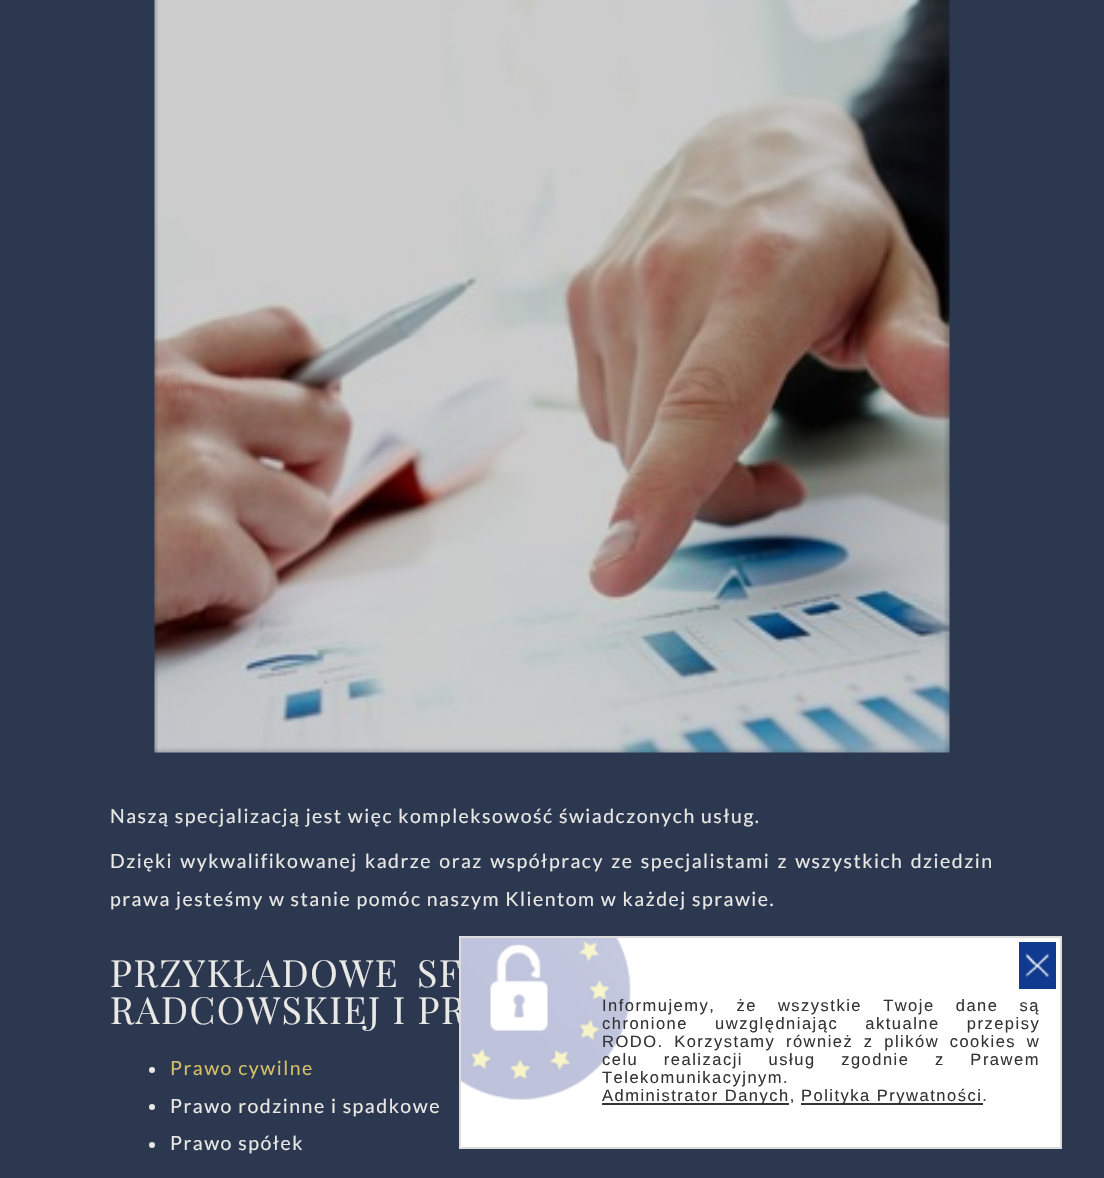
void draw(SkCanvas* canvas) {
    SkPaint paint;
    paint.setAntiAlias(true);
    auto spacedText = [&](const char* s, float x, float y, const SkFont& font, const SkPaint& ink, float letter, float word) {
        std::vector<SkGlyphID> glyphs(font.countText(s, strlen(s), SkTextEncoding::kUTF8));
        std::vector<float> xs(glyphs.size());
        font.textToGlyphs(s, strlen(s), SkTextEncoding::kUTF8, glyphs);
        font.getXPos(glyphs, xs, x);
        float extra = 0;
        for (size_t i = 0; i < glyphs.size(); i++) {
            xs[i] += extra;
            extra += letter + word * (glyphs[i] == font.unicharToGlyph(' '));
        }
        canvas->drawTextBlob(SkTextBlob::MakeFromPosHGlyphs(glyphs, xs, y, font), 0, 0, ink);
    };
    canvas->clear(0xFF2C3850);
    canvas->drawImageRect(SkImages::DeferredFromEncodedData(SkData::MakeFromFileName("img1.png")), SkRect::MakeXYWH(154, 0, 796, 753), SkSamplingOptions());
    SkFont font1(fontMgr->matchFamilyStyle("Lato", SkFontStyle::Normal()), 19.5f);
    font1.setSubpixel(true);
    paint.setColor(0xFFE8E8E5);
    spacedText("Naszą specjalizacją jest więc kompleksowość świadczonych usług.", 110, 823, font1, paint, 1.5f, 0);
    spacedText("Dzięki wykwalifikowanej kadrze oraz współpracy ze specjalistami z wszystkich dziedzin", 110, 868, font1, paint, 1.5f, 2);
    spacedText("prawa jesteśmy w stanie pomóc naszym Klientom w każdej sprawie.", 110, 906, font1, paint, 1.5f, 0);
    SkFont font2(fontMgr->matchFamilyStyle("Playfair Display", SkFontStyle::Normal()), 37.5f);
    font2.setSubpixel(true);
    spacedText("PRZYKŁADOWE SF", 110, 987, font2, paint, 1.5f, 7);
    spacedText("RADCOWSKIEJ I PR", 110, 1024, font2, paint, 1.5f, 0);
    canvas->drawCircle(152, 1070, 3, paint);
    paint.setColor(0xFFD4BE68);
    spacedText("Prawo cywilne", 170, 1075, font1, paint, 1.5f, 0);
    paint.setColor(0xFFE8E8E5);
    canvas->drawCircle(152, 1107, 3, paint);
    spacedText("Prawo rodzinne i spadkowe", 170, 1113, font1, paint, 1.5f, 0);
    canvas->drawCircle(152, 1145, 3, paint);
    spacedText("Prawo spółek", 170, 1150, font1, paint, 1.5f, 0);
    paint.setColor(0xFFFFFFFF);
    canvas->drawRect(SkRect::MakeXYWH(461, 938, 599, 209), paint);
    canvas->drawImageRect(SkImages::DeferredFromEncodedData(SkData::MakeFromFileName("img2.png")), SkRect::MakeXYWH(461, 938, 170, 162), SkSamplingOptions());
    paint.setStyle(SkPaint::kStroke_Style);
    paint.setStrokeWidth(2);
    paint.setColor(0xFFDDDDDD);
    canvas->drawRect(SkRect::MakeXYWH(460, 937, 601, 211), paint);
    paint.setStyle(SkPaint::kFill_Style);
    paint.setColor(0xFF103A8E);
    canvas->drawRect(SkRect::MakeXYWH(1019, 942, 37, 47), paint);
    canvas->drawImageRect(SkImages::DeferredFromEncodedData(SkData::MakeFromFileName("img3.png")), SkRect::MakeXYWH(1025, 953, 24, 24), SkSamplingOptions());
    SkFont font3(fontMgr->matchFamilyStyle("Liberation Sans", SkFontStyle::Normal()), 16.5f);
    font3.setSubpixel(true);
    paint.setColor(0xFF343434);
    spacedText("Informujemy, że wszystkie Twoje dane są", 602, 1011, font3, paint, 1.5f, 15);
    spacedText("chronione uwzględniając aktualne przepisy", 602, 1029, font3, paint, 1.5f, 21);
    spacedText("RODO. Korzystamy również z plików cookies w", 602, 1047, font3, paint, 1.5f, 4.5f);
    spacedText("celu realizacji usług zgodnie z Prawem", 602, 1065, font3, paint, 1.5f, 19.5f);
    spacedText("Telekomunikacyjnym.", 602, 1083, font3, paint, 1.5f, 0);
    canvas->drawRect(SkRect::MakeXYWH(602, 1103, 187, 2), paint);
    spacedText("Administrator Danych,", 602, 1101, font3, paint, 1.5f, 0);
    canvas->drawRect(SkRect::MakeXYWH(801, 1103, 182, 2), paint);
    spacedText("Polityka Prywatności.", 801, 1101, font3, paint, 1.5f, 0);
}
